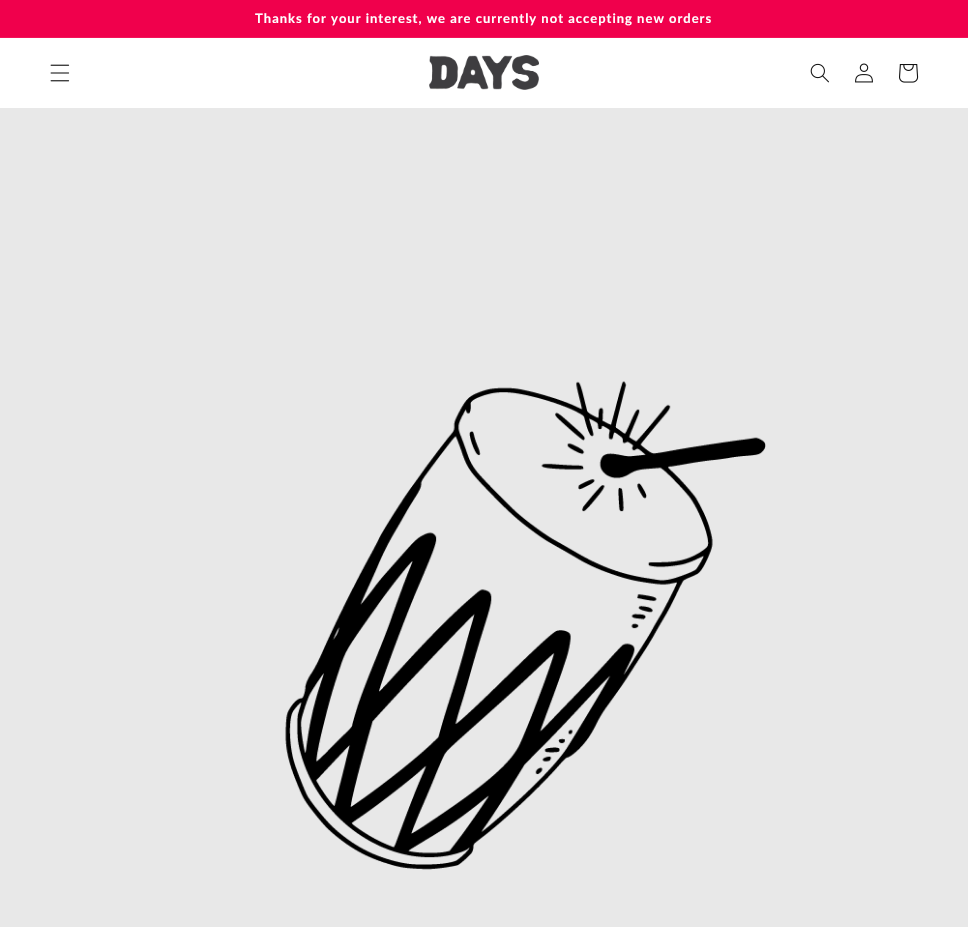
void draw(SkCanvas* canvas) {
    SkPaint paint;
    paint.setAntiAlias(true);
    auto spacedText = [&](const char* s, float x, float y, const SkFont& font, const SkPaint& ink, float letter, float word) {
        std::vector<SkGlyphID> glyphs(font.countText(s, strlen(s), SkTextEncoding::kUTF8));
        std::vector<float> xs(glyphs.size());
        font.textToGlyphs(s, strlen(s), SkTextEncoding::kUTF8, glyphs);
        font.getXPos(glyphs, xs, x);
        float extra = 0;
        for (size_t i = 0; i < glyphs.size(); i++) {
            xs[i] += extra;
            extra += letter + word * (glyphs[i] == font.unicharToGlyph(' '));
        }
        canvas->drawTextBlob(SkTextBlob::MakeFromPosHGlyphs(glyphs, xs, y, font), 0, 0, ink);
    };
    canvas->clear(0xFFFFFFFF);
    paint.setColor(0xFFF0004C);
    canvas->drawRect(SkRect::MakeXYWH(0, 0, 968, 37), paint);
    paint.setColor(0xFFF1145A);
    canvas->drawRect(SkRect::MakeXYWH(0, 37, 968, 1), paint);
    SkFont font1(fontMgr->matchFamilyStyle("Lato", SkFontStyle::Bold()), 13);
    font1.setSubpixel(true);
    paint.setColor(0xFFFFFFFF);
    spacedText("Thanks for your interest, we are currently not accepting new orders", 255, 23, font1, paint, 1, 0);
    canvas->drawImageRect(SkImages::DeferredFromEncodedData(SkData::MakeFromFileName("img1.png")), SkRect::MakeXYWH(50, 64, 20, 18), SkSamplingOptions());
    canvas->drawImageRect(SkImages::DeferredFromEncodedData(SkData::MakeFromFileName("img2.png")), SkRect::MakeXYWH(429, 55, 110, 35), SkSamplingOptions());
    canvas->drawImageRect(SkImages::DeferredFromEncodedData(SkData::MakeFromFileName("img3.png")), SkRect::MakeXYWH(810, 63, 19, 20), SkSamplingOptions());
    canvas->drawImageRect(SkImages::DeferredFromEncodedData(SkData::MakeFromFileName("img4.png")), SkRect::MakeXYWH(855, 63, 18, 20), SkSamplingOptions());
    canvas->drawImageRect(SkImages::DeferredFromEncodedData(SkData::MakeFromFileName("img5.png")), SkRect::MakeXYWH(899, 64, 20, 19), SkSamplingOptions());
    paint.setColor(0xFFE8E8E8);
    canvas->drawRect(SkRect::MakeXYWH(0, 108, 968, 819), paint);
    canvas->drawImageRect(SkImages::DeferredFromEncodedData(SkData::MakeFromFileName("img6.png")), SkRect::MakeXYWH(285, 381, 481, 489), SkSamplingOptions());
}
